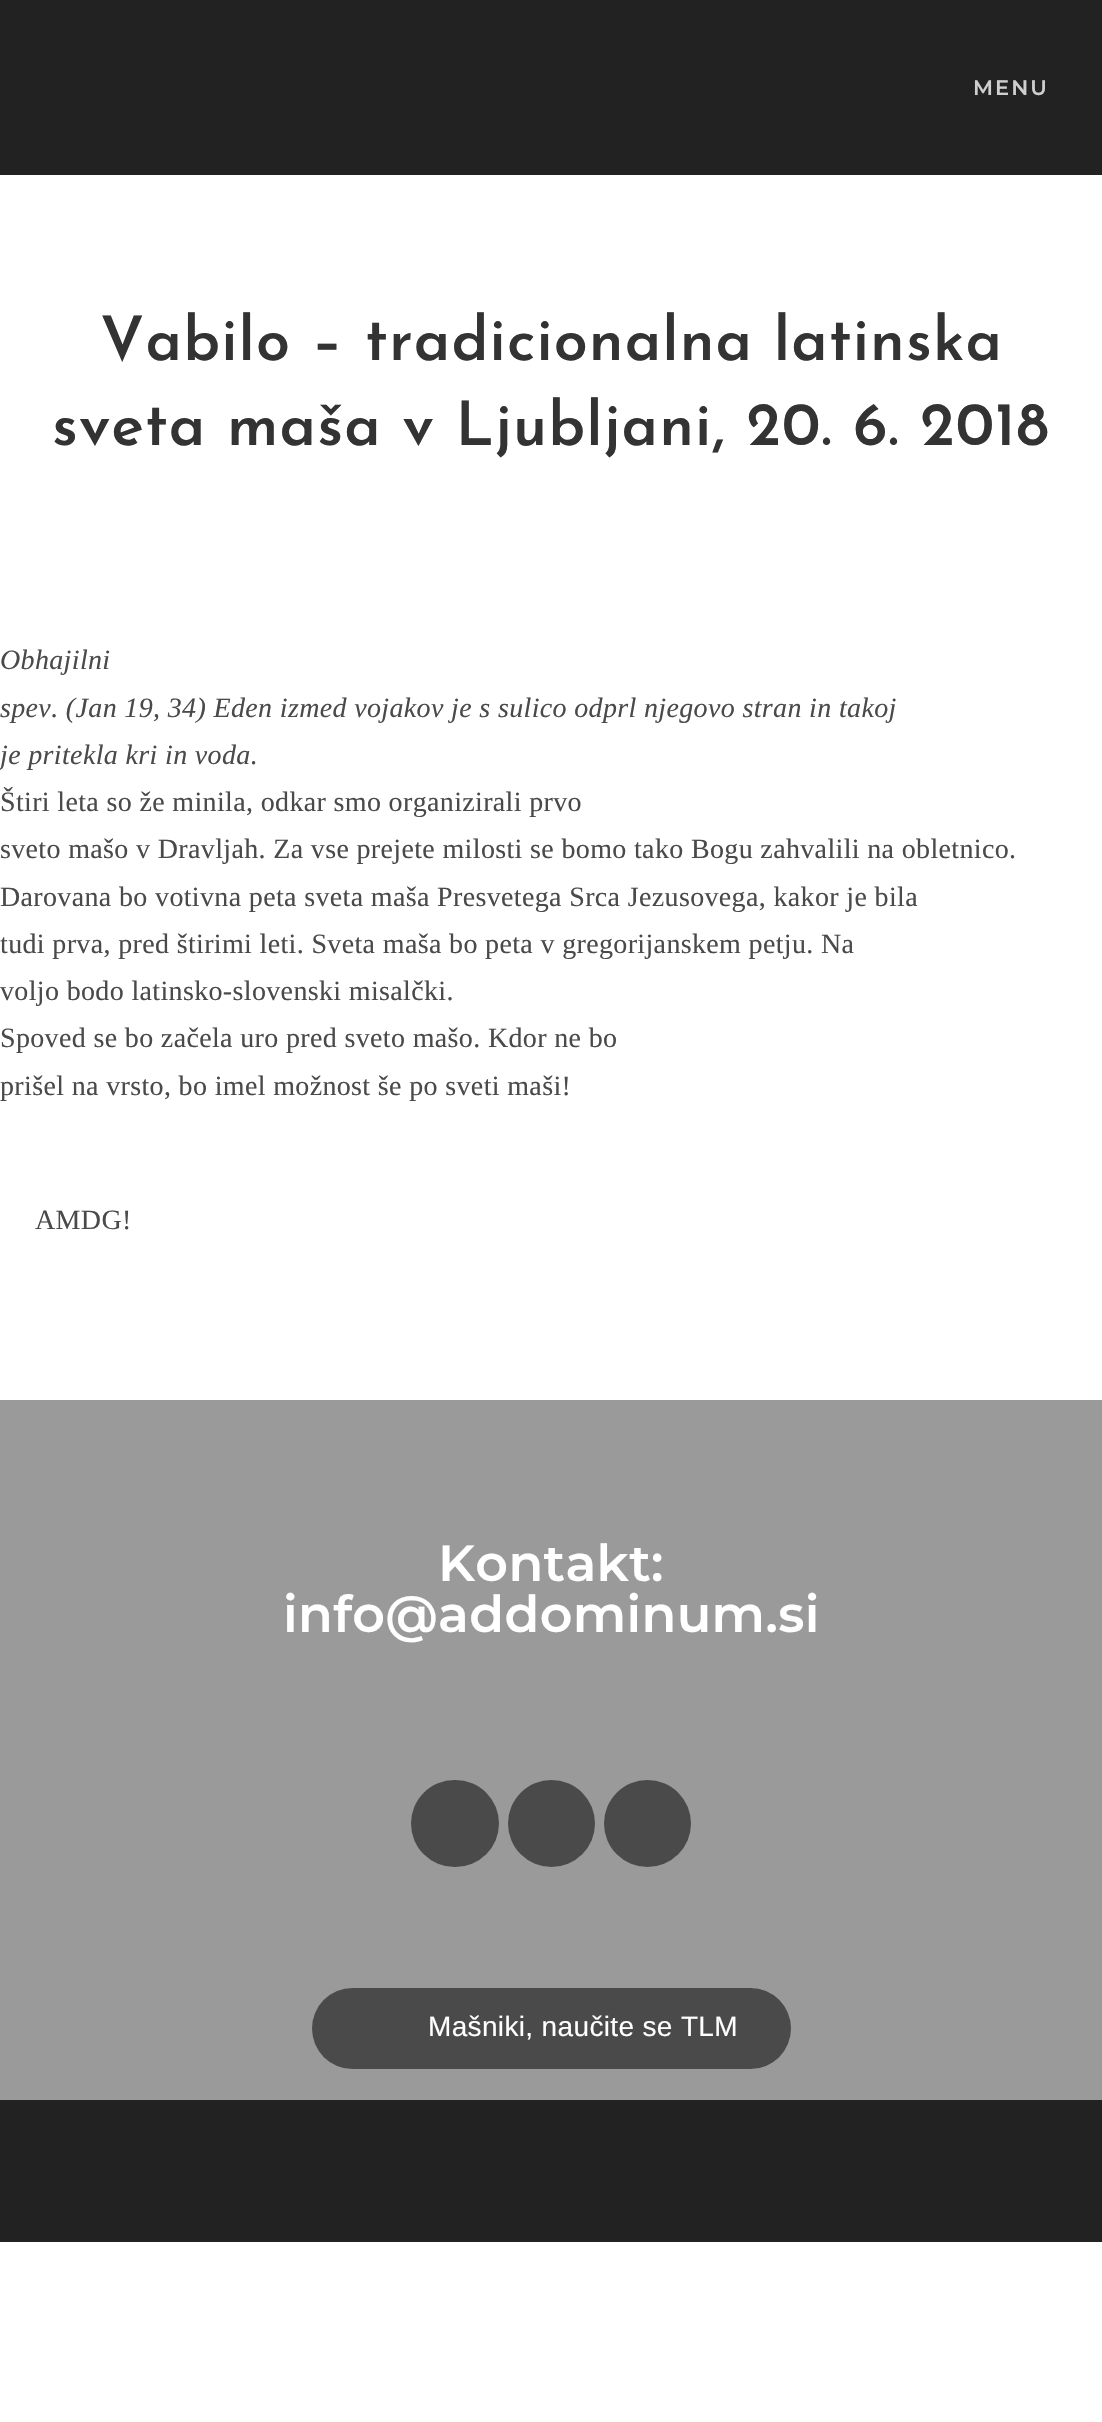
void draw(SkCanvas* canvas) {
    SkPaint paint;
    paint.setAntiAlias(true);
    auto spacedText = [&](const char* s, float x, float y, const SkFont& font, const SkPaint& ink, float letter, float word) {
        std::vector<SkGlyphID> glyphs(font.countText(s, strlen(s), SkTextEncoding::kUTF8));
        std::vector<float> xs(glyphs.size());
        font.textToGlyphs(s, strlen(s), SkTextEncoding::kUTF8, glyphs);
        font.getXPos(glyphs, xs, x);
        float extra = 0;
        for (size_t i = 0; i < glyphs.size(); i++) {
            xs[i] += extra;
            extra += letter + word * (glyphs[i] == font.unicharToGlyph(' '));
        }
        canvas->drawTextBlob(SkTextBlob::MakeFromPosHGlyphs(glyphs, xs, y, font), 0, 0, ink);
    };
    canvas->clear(0xFFFFFFFF);
    paint.setColor(0xFF222222);
    canvas->drawRect(SkRect::MakeXYWH(0, 0, 1102, 175), paint);
    SkFont font1(fontMgr->matchFamilyStyle("Montserrat", SkFontStyle(600, SkFontStyle::kNormal_Width, SkFontStyle::kUpright_Slant)), 21);
    font1.setSubpixel(true);
    paint.setColor(0xFFCECECE);
    spacedText("MENU", 973, 95, font1, paint, 2, 0);
    SkFont font2(fontMgr->matchFamilyStyle("Josefin Sans", SkFontStyle(600, SkFontStyle::kNormal_Width, SkFontStyle::kUpright_Slant)), 61.25f);
    font2.setSubpixel(true);
    paint.setColor(0xFF333333);
    spacedText("Vabilo – tradicionalna latinska", 100, 360, font2, paint, 1.05f, 0);
    spacedText("sveta maša v Ljubljani, 20. 6. 2018", 52, 445, font2, paint, 1.05f, 0);
    SkFont font3(fontMgr->matchFamilyStyle("Liberation Serif", SkFontStyle::Italic()), 28);
    font3.setSubpixel(true);
    paint.setColor(0xFF4A4A4A);
    spacedText("Obhajilni", 0, 669, font3, paint, 0.35f, 0);
    spacedText("spev. (Jan 19, 34) Eden izmed vojakov je s sulico odprl njegovo stran in takoj", 0, 717, font3, paint, 0.35f, 0);
    spacedText("je pritekla kri in voda.", 0, 764, font3, paint, 0.35f, 0);
    SkFont font4(fontMgr->matchFamilyStyle("Liberation Serif", SkFontStyle::Normal()), 28);
    font4.setSubpixel(true);
    spacedText("Štiri leta so že minila, odkar smo organizirali prvo", 0, 811, font4, paint, 0.35f, 0);
    spacedText("sveto mašo v Dravljah. Za vse prejete milosti se bomo tako Bogu zahvalili na obletnico.", 0, 858, font4, paint, 0.35f, 0);
    spacedText("Darovana bo votivna peta sveta maša Presvetega Srca Jezusovega, kakor je bila", 0, 906, font4, paint, 0.35f, 0);
    spacedText("tudi prva, pred štirimi leti. Sveta maša bo peta v gregorijanskem petju. Na", 0, 953, font4, paint, 0.35f, 0);
    spacedText("voljo bodo latinsko-slovenski misalčki.", 0, 1000, font4, paint, 0.35f, 0);
    spacedText("Spoved se bo začela uro pred sveto mašo. Kdor ne bo", 0, 1047, font4, paint, 0.35f, 0);
    spacedText("prišel na vrsto, bo imel možnost še po sveti maši!", 0, 1095, font4, paint, 0.35f, 0);
    spacedText("AMDG!", 35, 1229, font4, paint, 0.35f, 0);
    paint.setColor(0xFF9A9A9A);
    canvas->drawRect(SkRect::MakeXYWH(0, 1400, 1102, 700), paint);
    SkFont font5(fontMgr->matchFamilyStyle("Montserrat", SkFontStyle(600, SkFontStyle::kNormal_Width, SkFontStyle::kUpright_Slant)), 50.75f);
    font5.setSubpixel(true);
    paint.setColor(0xFFFFFFFF);
    spacedText("Kontakt:", 438, 1581, font5, paint, 0.35f, 0);
    spacedText("info@addominum.si", 283, 1632, font5, paint, 0.35f, 0);
    paint.setColor(0xFF4A4A4A);
    canvas->drawRoundRect(SkRect::MakeXYWH(411, 1780, 88, 87), 43.5f, 43.5f, paint);
    canvas->drawCircle(551.5f, 1823.5f, 43.5f, paint);
    canvas->drawCircle(647.5f, 1823.5f, 43.5f, paint);
    canvas->drawRoundRect(SkRect::MakeXYWH(312, 1988, 479, 81), 40.5f, 40.5f, paint);
    SkFont font6(fontMgr->matchFamilyStyle("Liberation Sans", SkFontStyle::Normal()), 28);
    font6.setSubpixel(true);
    paint.setColor(0xFFFFFFFF);
    spacedText("Mašniki, naučite se TLM", 428, 2036, font6, paint, 0.35f, 0);
    paint.setColor(0xFF222222);
    canvas->drawRect(SkRect::MakeXYWH(0, 2100, 1102, 142), paint);
}
